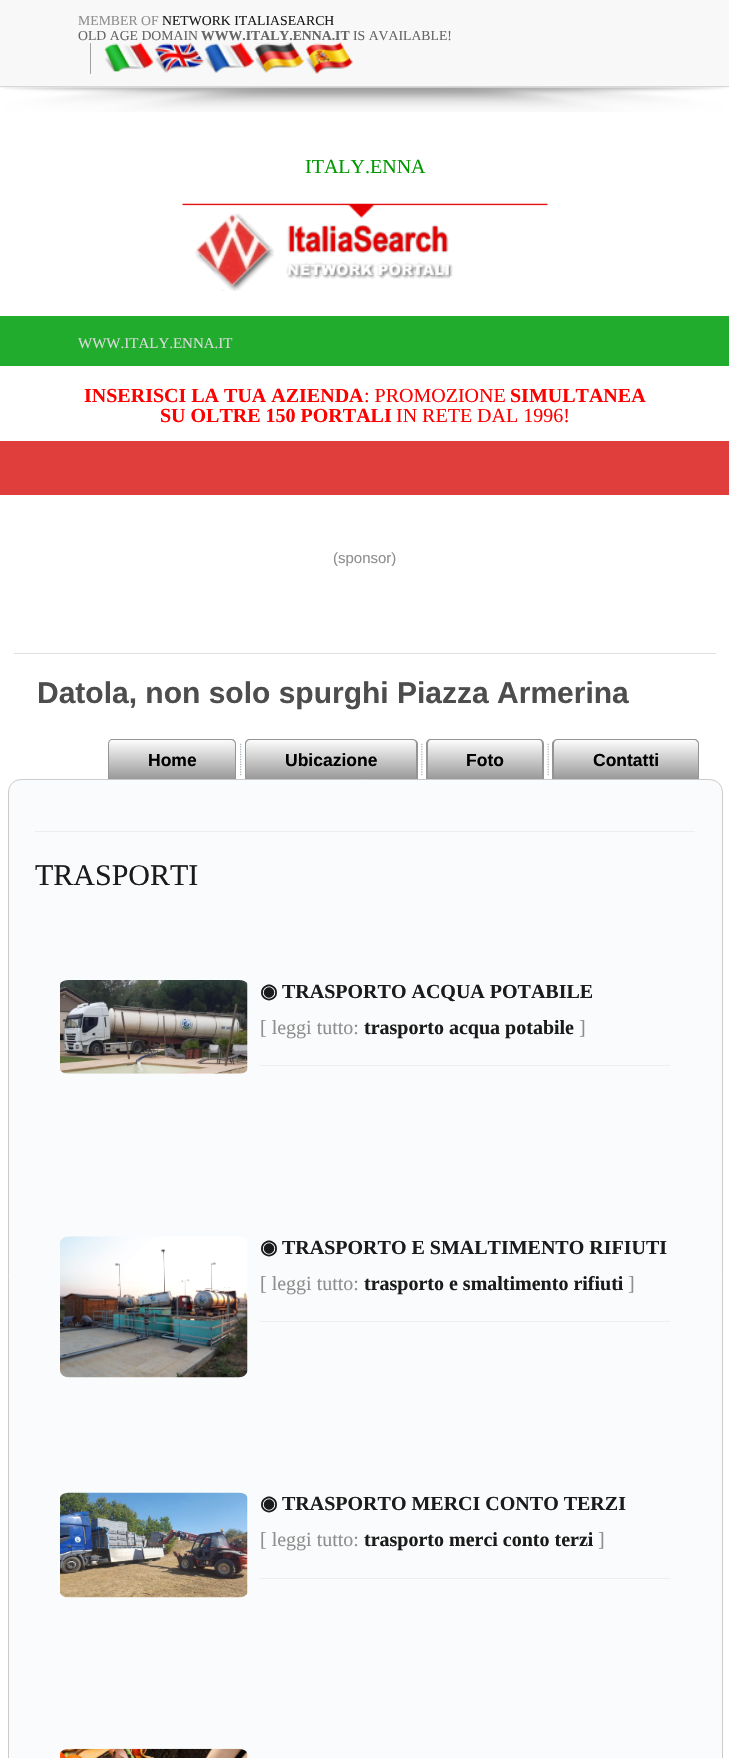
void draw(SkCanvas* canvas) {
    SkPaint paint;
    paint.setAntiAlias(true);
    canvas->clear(0xFFFFFFFF);
    paint.setColor(0xFFF8F8F8);
    canvas->drawRect(SkRect::MakeXYWH(0, 0, 729, 88), paint);
    paint.setColor(0xFFD8D8D8);
    canvas->drawRect(SkRect::MakeXYWH(0, 86, 729, 1), paint);
    SkFont font1(fontMgr->matchFamilyStyle("Liberation Serif", SkFontStyle::Normal()), 13.75f);
    font1.setSubpixel(true);
    paint.setColor(0xFF8F8F8F);
    canvas->drawString("MEMBER OF", 78, 25, font1, paint);
    paint.setColor(0xFF1B1B1B);
    canvas->drawString("NETWORK ITALIASEARCH", 162, 25, font1, paint);
    paint.setColor(0xFF666666);
    canvas->drawString("OLD AGE DOMAIN", 78, 40, font1, paint);
    SkFont font2(fontMgr->matchFamilyStyle("Liberation Serif", SkFontStyle::Bold()), 13.75f);
    font2.setSubpixel(true);
    canvas->drawString("WWW.ITALY.ENNA.IT", 201, 40, font2, paint);
    canvas->drawString("IS AVAILABLE!", 353, 40, font1, paint);
    paint.setColor(0xFFA3A3A3);
    canvas->drawRect(SkRect::MakeXYWH(90, 43, 1, 31), paint);
    canvas->drawImageRect(SkImages::DeferredFromEncodedData(SkData::MakeFromFileName("img1.png")), SkRect::MakeXYWH(104, 42, 50, 30), SkSamplingOptions());
    canvas->drawImageRect(SkImages::DeferredFromEncodedData(SkData::MakeFromFileName("img2.png")), SkRect::MakeXYWH(154, 42, 50, 31), SkSamplingOptions());
    canvas->drawImageRect(SkImages::DeferredFromEncodedData(SkData::MakeFromFileName("img3.png")), SkRect::MakeXYWH(204, 42, 50, 31), SkSamplingOptions());
    canvas->drawImageRect(SkImages::DeferredFromEncodedData(SkData::MakeFromFileName("img4.png")), SkRect::MakeXYWH(254, 42, 50, 31), SkSamplingOptions());
    canvas->drawImageRect(SkImages::DeferredFromEncodedData(SkData::MakeFromFileName("img5.png")), SkRect::MakeXYWH(306, 42, 47, 32), SkSamplingOptions());
    canvas->drawImageRect(SkImages::DeferredFromEncodedData(SkData::MakeFromFileName("img6.png")), SkRect::MakeXYWH(3, 87, 723, 25), SkSamplingOptions());
    SkFont font3(fontMgr->matchFamilyStyle("Liberation Serif", SkFontStyle::Normal()), 20);
    font3.setSubpixel(true);
    paint.setColor(0xFF009900);
    canvas->drawString("ITALY.ENNA", 305, 173, font3, paint);
    canvas->drawImageRect(SkImages::DeferredFromEncodedData(SkData::MakeFromFileName("img7.png")), SkRect::MakeXYWH(182, 203, 366, 88), SkSamplingOptions());
    paint.setColor(0xFF21AC2D);
    canvas->drawRect(SkRect::MakeXYWH(0, 316, 729, 50), paint);
    SkFont font4(fontMgr->matchFamilyStyle("Liberation Serif", SkFontStyle::Normal()), 15);
    font4.setSubpixel(true);
    paint.setColor(0xFFDADADA);
    canvas->drawString("WWW.ITALY.ENNA.IT", 78, 348, font4, paint);
    SkFont font5(fontMgr->matchFamilyStyle("Liberation Serif", SkFontStyle::Bold()), 20);
    font5.setSubpixel(true);
    paint.setColor(0xFFFF0000);
    canvas->drawString("INSERISCI LA TUA AZIENDA", 84, 402, font5, paint);
    canvas->drawString(": PROMOZIONE", 364, 402, font3, paint);
    canvas->drawString("SIMULTANEA", 510, 402, font5, paint);
    canvas->drawString("SU OLTRE 150 PORTALI", 160, 422, font5, paint);
    canvas->drawString("IN RETE DAL 1996!", 396, 422, font3, paint);
    paint.setColor(0xFFE03D3D);
    canvas->drawRect(SkRect::MakeXYWH(0, 441, 729, 54), paint);
    SkFont font6(fontMgr->matchFamilyStyle("Liberation Sans", SkFontStyle::Normal()), 15);
    font6.setSubpixel(true);
    paint.setColor(0xFF8F8F8F);
    canvas->drawString("(sponsor)", 333, 563, font6, paint);
    paint.setColor(0xFFE0E0E0);
    canvas->drawRect(SkRect::MakeXYWH(14, 653, 702, 1), paint);
    SkFont font7(fontMgr->matchFamilyStyle("Liberation Sans", SkFontStyle::Bold()), 30);
    font7.setSubpixel(true);
    paint.setColor(0xFF4D4D4D);
    canvas->drawString("Datola, non solo spurghi Piazza Armerina", 37, 703, font7, paint);
    {
        const SkColor colors[] = {0xFFFFFFFF, 0xFF999999};
        const float stops[] = {0, 1};
        const SkPoint ends[] = {{172, 739}, {172, 779}};
        paint.setShader(SkGradientShader::MakeLinear(ends, colors, stops, 2, SkTileMode::kClamp));
        paint.setAlpha(255);
    }
    canvas->drawPath(SkPathBuilder().moveTo(113, 739).lineTo(231, 739).cubicTo(234, 739, 236, 741, 236, 744).lineTo(236, 779).lineTo(108, 779).lineTo(108, 744).cubicTo(108, 741, 110, 739, 113, 739).close().detach(), paint);
    paint.setShader(nullptr);
    paint.setColor(0xFF949494);
    canvas->drawPath(SkPathBuilder(SkPathFillType::kEvenOdd).moveTo(112, 739).lineTo(231, 739).cubicTo(234, 739, 236, 741, 236, 744).lineTo(236, 779).lineTo(108, 779).lineTo(108, 744).cubicTo(108, 741, 110, 739, 112, 739).close().moveTo(112, 740).lineTo(231, 740).cubicTo(233, 740, 235, 742, 235, 744).lineTo(235, 779).lineTo(109, 779).lineTo(109, 744).cubicTo(109, 742, 110, 740, 112, 740).close().detach(), paint);
    SkFont font8(fontMgr->matchFamilyStyle("Liberation Sans", SkFontStyle::Bold()), 17.5f);
    font8.setSubpixel(true);
    paint.setColor(0xFF000000);
    canvas->drawString("Home", 148, 766, font8, paint);
    canvas->drawImageRect(SkImages::DeferredFromEncodedData(SkData::MakeFromFileName("img8.png")), SkRect::MakeXYWH(240, 743, 2, 33), SkSamplingOptions());
    {
        const SkColor colors[] = {0xFFFFFFFF, 0xFF999999};
        const float stops[] = {0, 1};
        const SkPoint ends[] = {{331, 739}, {331, 779}};
        paint.setShader(SkGradientShader::MakeLinear(ends, colors, stops, 2, SkTileMode::kClamp));
        paint.setAlpha(255);
    }
    canvas->drawPath(SkPathBuilder().moveTo(250, 739).lineTo(413, 739).cubicTo(416, 739, 418, 741, 418, 744).lineTo(418, 779).lineTo(245, 779).lineTo(245, 744).cubicTo(245, 741, 247, 739, 250, 739).close().detach(), paint);
    paint.setShader(nullptr);
    paint.setColor(0xFF949494);
    canvas->drawPath(SkPathBuilder(SkPathFillType::kEvenOdd).moveTo(250, 739).lineTo(412, 739).cubicTo(415, 739, 418, 741, 418, 744).lineTo(418, 779).lineTo(245, 779).lineTo(245, 744).cubicTo(245, 741, 247, 739, 250, 739).close().moveTo(250, 740).lineTo(412, 740).cubicTo(415, 740, 416, 742, 416, 744).lineTo(416, 779).lineTo(246, 779).lineTo(246, 744).cubicTo(246, 742, 248, 740, 250, 740).close().detach(), paint);
    paint.setColor(0xFF000000);
    canvas->drawString("Ubicazione", 285, 766, font8, paint);
    canvas->drawImageRect(SkImages::DeferredFromEncodedData(SkData::MakeFromFileName("img9.png")), SkRect::MakeXYWH(421, 743, 2, 33), SkSamplingOptions());
    {
        const SkColor colors[] = {0xFFFFFFFF, 0xFF999999};
        const float stops[] = {0, 1};
        const SkPoint ends[] = {{485, 739}, {485, 779}};
        paint.setShader(SkGradientShader::MakeLinear(ends, colors, stops, 2, SkTileMode::kClamp));
        paint.setAlpha(255);
    }
    canvas->drawPath(SkPathBuilder().moveTo(431, 739).lineTo(539, 739).cubicTo(542, 739, 544, 741, 544, 744).lineTo(544, 779).lineTo(426, 779).lineTo(426, 744).cubicTo(426, 741, 428, 739, 431, 739).close().detach(), paint);
    paint.setShader(nullptr);
    paint.setColor(0xFF949494);
    canvas->drawPath(SkPathBuilder(SkPathFillType::kEvenOdd).moveTo(431, 739).lineTo(539, 739).cubicTo(542, 739, 544, 741, 544, 744).lineTo(544, 779).lineTo(426, 779).lineTo(426, 744).cubicTo(426, 741, 428, 739, 431, 739).close().moveTo(431, 740).lineTo(539, 740).cubicTo(541, 740, 542, 742, 542, 744).lineTo(542, 779).lineTo(428, 779).lineTo(428, 744).cubicTo(428, 742, 429, 740, 431, 740).close().detach(), paint);
    paint.setColor(0xFF000000);
    canvas->drawString("Foto", 466, 766, font8, paint);
    canvas->drawImageRect(SkImages::DeferredFromEncodedData(SkData::MakeFromFileName("img10.png")), SkRect::MakeXYWH(547, 743, 2, 33), SkSamplingOptions());
    {
        const SkColor colors[] = {0xFFFFFFFF, 0xFF999999};
        const float stops[] = {0, 1};
        const SkPoint ends[] = {{626, 739}, {626, 779}};
        paint.setShader(SkGradientShader::MakeLinear(ends, colors, stops, 2, SkTileMode::kClamp));
        paint.setAlpha(255);
    }
    canvas->drawPath(SkPathBuilder().moveTo(558, 739).lineTo(694, 739).cubicTo(697, 739, 699, 741, 699, 744).lineTo(699, 779).lineTo(553, 779).lineTo(553, 744).cubicTo(553, 741, 555, 739, 558, 739).close().detach(), paint);
    paint.setShader(nullptr);
    paint.setColor(0xFF949494);
    canvas->drawPath(SkPathBuilder(SkPathFillType::kEvenOdd).moveTo(558, 739).lineTo(694, 739).cubicTo(697, 739, 699, 741, 699, 744).lineTo(699, 779).lineTo(552, 779).lineTo(552, 744).cubicTo(552, 741, 555, 739, 558, 739).close().moveTo(558, 740).lineTo(694, 740).cubicTo(696, 740, 698, 742, 698, 744).lineTo(698, 779).lineTo(554, 779).lineTo(554, 744).cubicTo(554, 742, 555, 740, 558, 740).close().detach(), paint);
    paint.setColor(0xFF000000);
    canvas->drawString("Contatti", 593, 766, font8, paint);
    paint.setColor(0xFFFAFBFC);
    canvas->drawRoundRect(SkRect::MakeXYWH(8.5f, 779.5f, 714, 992), 12.5f, 12.5f, paint);
    paint.setStyle(SkPaint::kStroke_Style);
    paint.setStrokeWidth(1);
    paint.setColor(0xFFCBCBCB);
    canvas->drawRoundRect(SkRect::MakeXYWH(8.5f, 779.5f, 714, 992), 12.5f, 12.5f, paint);
    paint.setStyle(SkPaint::kFill_Style);
    paint.setColor(0xFFEEEEEE);
    canvas->drawRect(SkRect::MakeXYWH(35, 831, 660, 1), paint);
    SkFont font9(fontMgr->matchFamilyStyle("Liberation Serif", SkFontStyle::Normal()), 30);
    font9.setSubpixel(true);
    paint.setColor(0xFF1B1B1B);
    canvas->drawString("TRASPORTI", 35, 885, font9, paint);
    canvas->drawImageRect(SkImages::DeferredFromEncodedData(SkData::MakeFromFileName("img11.png")), SkRect::MakeXYWH(60, 980, 188, 94), SkSamplingOptions());
    SkFont font10(fontMgr->matchFamilyStyle("DejaVu Sans", SkFontStyle::Bold()), 20);
    font10.setSubpixel(true);
    canvas->drawString("◉", 260, 998, font10, paint);
    canvas->drawString("TRASPORTO ACQUA POTABILE", 282, 998, font5, paint);
    paint.setColor(0xFF8F8F8F);
    canvas->drawString("[ leggi tutto:", 260, 1034, font3, paint);
    paint.setColor(0xFF1B1B1B);
    canvas->drawString("trasporto acqua potabile", 364, 1034, font5, paint);
    paint.setColor(0xFF8F8F8F);
    canvas->drawString("]", 579, 1034, font3, paint);
    paint.setColor(0xFFEEEEEE);
    canvas->drawRect(SkRect::MakeXYWH(260, 1065, 410, 1), paint);
    canvas->drawImageRect(SkImages::DeferredFromEncodedData(SkData::MakeFromFileName("img12.png")), SkRect::MakeXYWH(60, 1236, 188, 142), SkSamplingOptions());
    paint.setColor(0xFF1B1B1B);
    canvas->drawString("◉", 260, 1254, font10, paint);
    canvas->drawString("TRASPORTO E SMALTIMENTO RIFIUTI", 282, 1254, font5, paint);
    paint.setColor(0xFF8F8F8F);
    canvas->drawString("[ leggi tutto:", 260, 1290, font3, paint);
    paint.setColor(0xFF1B1B1B);
    canvas->drawString("trasporto e smaltimento rifiuti", 364, 1290, font5, paint);
    paint.setColor(0xFF8F8F8F);
    canvas->drawString("]", 628, 1290, font3, paint);
    paint.setColor(0xFFEEEEEE);
    canvas->drawRect(SkRect::MakeXYWH(260, 1321, 410, 1), paint);
    canvas->drawImageRect(SkImages::DeferredFromEncodedData(SkData::MakeFromFileName("img13.png")), SkRect::MakeXYWH(60, 1492, 188, 106), SkSamplingOptions());
    paint.setColor(0xFF1B1B1B);
    canvas->drawString("◉", 260, 1510, font10, paint);
    canvas->drawString("TRASPORTO MERCI CONTO TERZI", 282, 1510, font5, paint);
    paint.setColor(0xFF8F8F8F);
    canvas->drawString("[ leggi tutto:", 260, 1546, font3, paint);
    paint.setColor(0xFF1B1B1B);
    canvas->drawString("trasporto merci conto terzi", 364, 1546, font5, paint);
    paint.setColor(0xFF8F8F8F);
    canvas->drawString("]", 598, 1546, font3, paint);
    paint.setColor(0xFFEEEEEE);
    canvas->drawRect(SkRect::MakeXYWH(260, 1578, 410, 1), paint);
    canvas->drawImageRect(SkImages::DeferredFromEncodedData(SkData::MakeFromFileName("img14.png")), SkRect::MakeXYWH(60, 1748, 188, 10), SkSamplingOptions());
}
